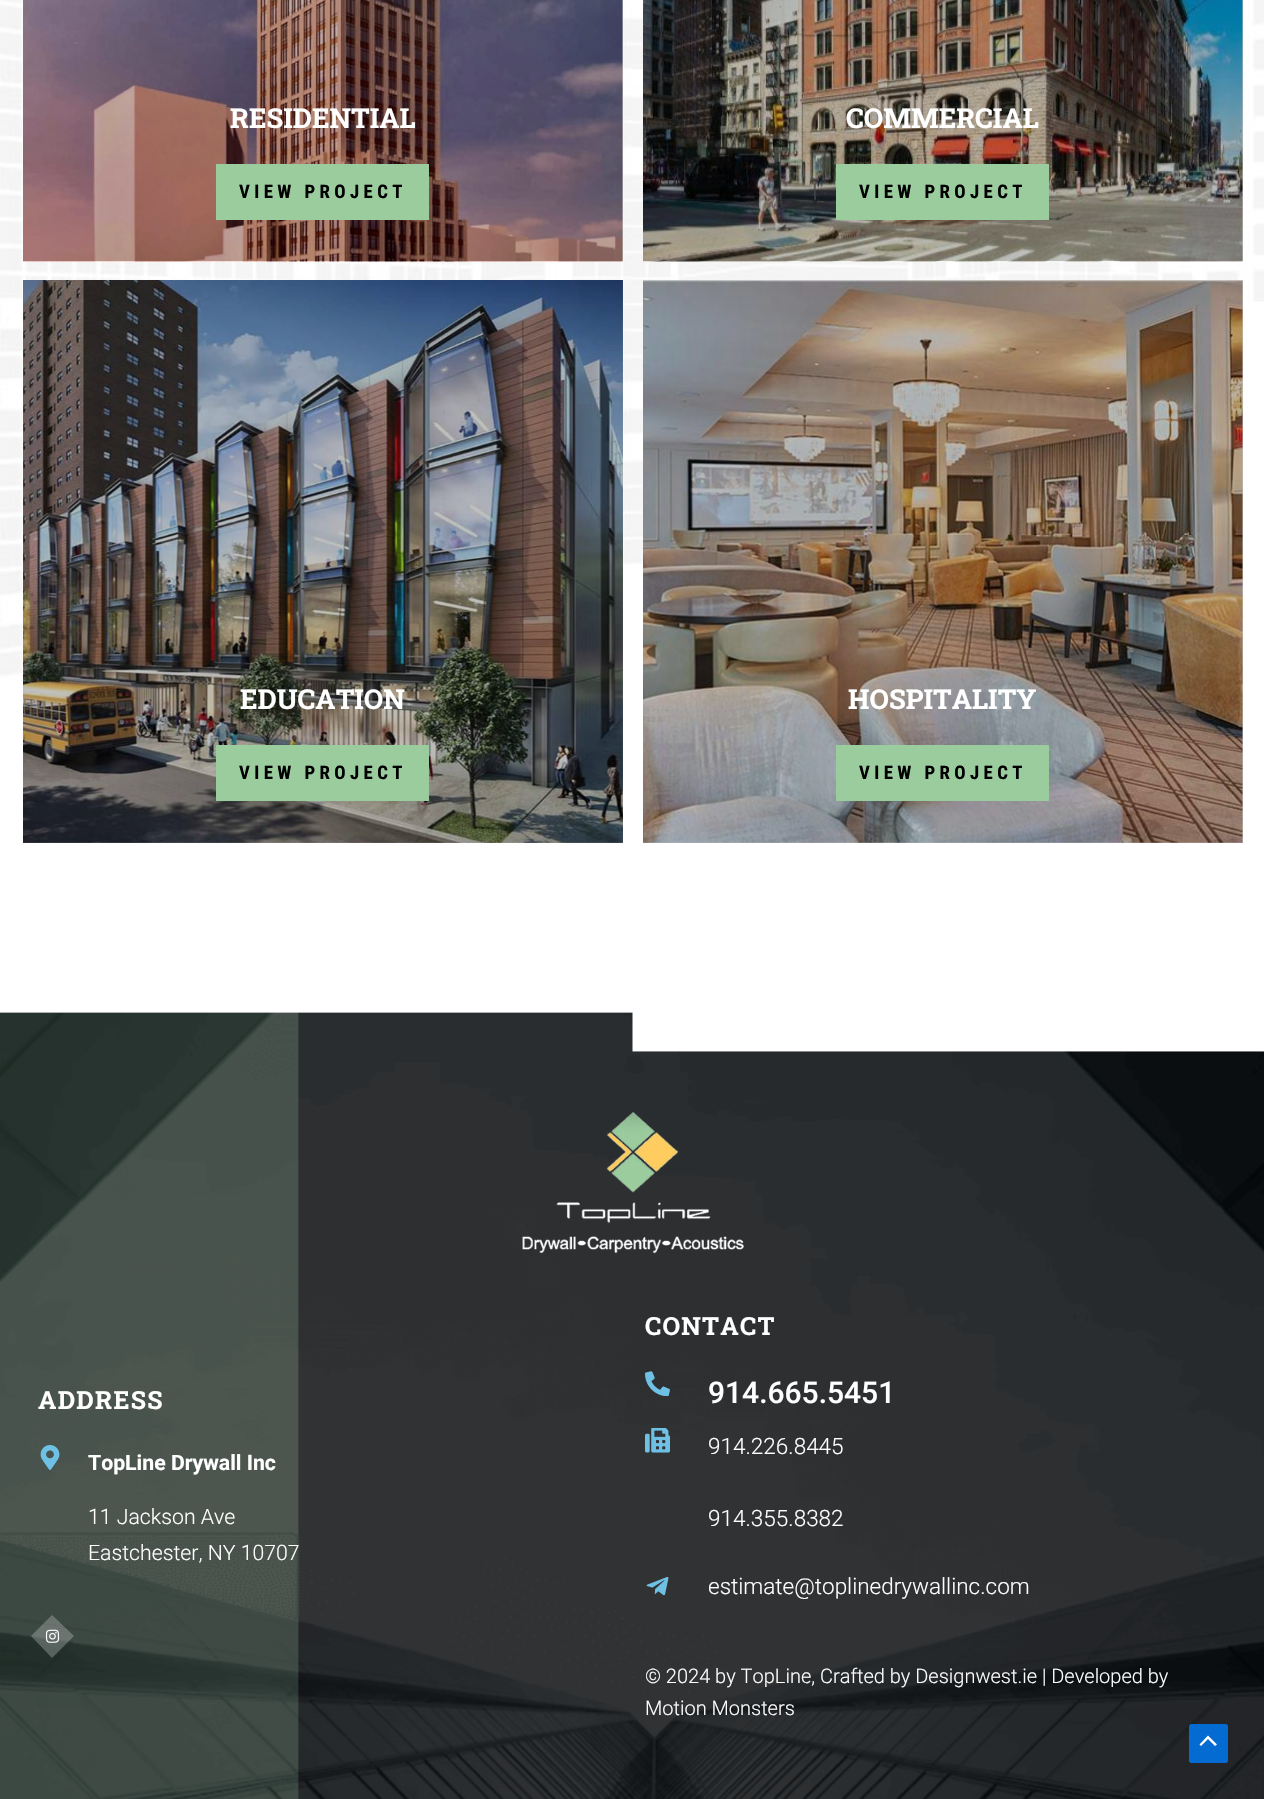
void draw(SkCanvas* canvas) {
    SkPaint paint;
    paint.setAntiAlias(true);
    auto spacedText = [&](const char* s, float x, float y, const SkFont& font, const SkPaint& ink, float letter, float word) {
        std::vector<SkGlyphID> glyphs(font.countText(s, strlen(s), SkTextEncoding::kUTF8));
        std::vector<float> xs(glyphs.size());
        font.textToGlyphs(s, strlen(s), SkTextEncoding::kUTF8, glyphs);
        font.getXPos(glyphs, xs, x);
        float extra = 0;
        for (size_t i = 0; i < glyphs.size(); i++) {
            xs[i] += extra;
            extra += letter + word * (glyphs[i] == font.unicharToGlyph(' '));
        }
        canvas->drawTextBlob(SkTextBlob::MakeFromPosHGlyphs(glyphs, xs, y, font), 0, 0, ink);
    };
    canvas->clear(0xFFFFFFFF);
    canvas->drawImageRect(SkImages::DeferredFromEncodedData(SkData::MakeFromFileName("img1.png")), SkRect::MakeXYWH(0, 0, 1264, 762), SkSamplingOptions());
    canvas->drawImageRect(SkImages::DeferredFromEncodedData(SkData::MakeFromFileName("img2.png")), SkRect::MakeXYWH(23, 0, 600, 262), SkSamplingOptions());
    paint.setColor(0x3D000000);
    canvas->drawRect(SkRect::MakeXYWH(23, 0, 600, 261), paint);
    SkFont font1(fontMgr->matchFamilyStyle("Roboto Slab", SkFontStyle::Bold()), 27.5f);
    font1.setSubpixel(true);
    paint.setColor(0xFFFFFFFF);
    canvas->drawString("RESIDENTIAL", 230, 128, font1, paint);
    paint.setColor(0xFF9BCC9E);
    canvas->drawRect(SkRect::MakeXYWH(216, 164, 213, 56), paint);
    SkFont font2(fontMgr->matchFamilyStyle("Roboto Condensed", SkFontStyle::Bold()), 18.75f);
    font2.setSubpixel(true);
    paint.setColor(0xFF000000);
    spacedText("VIEW PROJECT", 239, 198, font2, paint, 4.4f, 0);
    canvas->drawImageRect(SkImages::DeferredFromEncodedData(SkData::MakeFromFileName("img3.png")), SkRect::MakeXYWH(643, 0, 600, 262), SkSamplingOptions());
    paint.setColor(0x3D000000);
    canvas->drawRect(SkRect::MakeXYWH(643, 0, 600, 261), paint);
    paint.setColor(0xFFFFFFFF);
    canvas->drawString("COMMERCIAL", 846, 128, font1, paint);
    paint.setColor(0xFF9BCC9E);
    canvas->drawRect(SkRect::MakeXYWH(836, 164, 213, 56), paint);
    paint.setColor(0xFF000000);
    spacedText("VIEW PROJECT", 859, 198, font2, paint, 4.4f, 0);
    canvas->drawImageRect(SkImages::DeferredFromEncodedData(SkData::MakeFromFileName("img4.png")), SkRect::MakeXYWH(23, 280, 600, 563), SkSamplingOptions());
    paint.setColor(0x3D000000);
    canvas->drawRect(SkRect::MakeXYWH(23, 280, 600, 563), paint);
    paint.setColor(0xFFFFFFFF);
    canvas->drawString("EDUCATION", 240, 709, font1, paint);
    paint.setColor(0xFF9BCC9E);
    canvas->drawRect(SkRect::MakeXYWH(216, 745, 213, 56), paint);
    paint.setColor(0xFF000000);
    spacedText("VIEW PROJECT", 239, 779, font2, paint, 4.4f, 0);
    canvas->drawImageRect(SkImages::DeferredFromEncodedData(SkData::MakeFromFileName("img5.png")), SkRect::MakeXYWH(643, 280, 600, 563), SkSamplingOptions());
    paint.setColor(0x3D000000);
    canvas->drawRect(SkRect::MakeXYWH(643, 280, 600, 563), paint);
    paint.setColor(0xFFFFFFFF);
    canvas->drawString("HOSPITALITY", 848, 709, font1, paint);
    paint.setColor(0xFF9BCC9E);
    canvas->drawRect(SkRect::MakeXYWH(836, 745, 213, 56), paint);
    paint.setColor(0xFF000000);
    spacedText("VIEW PROJECT", 859, 779, font2, paint, 4.4f, 0);
    canvas->drawImageRect(SkImages::DeferredFromEncodedData(SkData::MakeFromFileName("img6.png")), SkRect::MakeXYWH(0, 1012, 1264, 787), SkSamplingOptions());
    canvas->drawImageRect(SkImages::DeferredFromEncodedData(SkData::MakeFromFileName("img7.png")), SkRect::MakeXYWH(522, 1111, 222, 143), SkSamplingOptions());
    SkFont font3(fontMgr->matchFamilyStyle("Roboto Slab", SkFontStyle::Bold()), 25);
    font3.setSubpixel(true);
    paint.setColor(0xFFFFFFFF);
    spacedText("ADDRESS", 38, 1409, font3, paint, 1.25f, 0);
    canvas->drawImageRect(SkImages::DeferredFromEncodedData(SkData::MakeFromFileName("img8.png")), SkRect::MakeXYWH(40, 1445, 20, 25), SkSamplingOptions());
    SkFont font4(fontMgr->matchFamilyStyle("Roboto", SkFontStyle::Bold()), 21.25f);
    font4.setSubpixel(true);
    canvas->drawString("TopLine Drywall Inc", 88, 1470, font4, paint);
    SkFont font5(fontMgr->matchFamilyStyle("Roboto", SkFontStyle(300, SkFontStyle::kNormal_Width, SkFontStyle::kUpright_Slant)), 21.25f);
    font5.setSubpixel(true);
    canvas->drawString("11 Jackson Ave", 88, 1524, font5, paint);
    canvas->drawString("Eastchester, NY 10707", 88, 1560, font5, paint);
    paint.setColor(0x3DFFFFFF);
    canvas->drawPath(SkPathBuilder().moveTo(52, 1615).lineTo(74, 1636).lineTo(52, 1658).lineTo(31, 1636).close().detach(), paint);
    canvas->drawImageRect(SkImages::DeferredFromEncodedData(SkData::MakeFromFileName("img9.png")), SkRect::MakeXYWH(45, 1629, 15, 14), SkSamplingOptions());
    paint.setColor(0xFFFFFFFF);
    spacedText("CONTACT", 645, 1335, font3, paint, 1.25f, 0);
    canvas->drawImageRect(SkImages::DeferredFromEncodedData(SkData::MakeFromFileName("img10.png")), SkRect::MakeXYWH(645, 1371, 25, 25), SkSamplingOptions());
    SkFont font6(fontMgr->matchFamilyStyle("Roboto", SkFontStyle(500, SkFontStyle::kNormal_Width, SkFontStyle::kUpright_Slant)), 30);
    font6.setSubpixel(true);
    canvas->drawString("914.665.5451", 708, 1403, font6, paint);
    canvas->drawImageRect(SkImages::DeferredFromEncodedData(SkData::MakeFromFileName("img11.png")), SkRect::MakeXYWH(645, 1428, 25, 25), SkSamplingOptions());
    SkFont font7(fontMgr->matchFamilyStyle("Roboto", SkFontStyle(300, SkFontStyle::kNormal_Width, SkFontStyle::kUpright_Slant)), 22.5f);
    font7.setSubpixel(true);
    canvas->drawString("914.226.8445", 708, 1454, font7, paint);
    canvas->drawString("914.355.8382", 708, 1526, font7, paint);
    canvas->drawImageRect(SkImages::DeferredFromEncodedData(SkData::MakeFromFileName("img12.png")), SkRect::MakeXYWH(646, 1576, 23, 20), SkSamplingOptions());
    canvas->drawString("estimate@toplinedrywallinc.com", 708, 1594, font7, paint);
    SkFont font8(fontMgr->matchFamilyStyle("Roboto", SkFontStyle(300, SkFontStyle::kNormal_Width, SkFontStyle::kUpright_Slant)), 20);
    font8.setSubpixel(true);
    canvas->drawString("© 2024 by TopLine, Crafted by Designwest.ie | Developed by", 645, 1683, font8, paint);
    canvas->drawString("Motion Monsters", 645, 1715, font8, paint);
    paint.setColor(0xFF046BD2);
    canvas->drawRoundRect(SkRect::MakeXYWH(1189, 1724, 39, 39), 2.5f, 2.5f, paint);
    paint.setColor(0xFFFFFFFF);
    canvas->drawPath(SkPathBuilder().moveTo(1217, 1744.5f).lineTo(1208, 1735.5f).lineTo(1199.5f, 1744.5f).lineTo(1201, 1746).lineTo(1208, 1739).lineTo(1215, 1746).close().detach(), paint);
}
